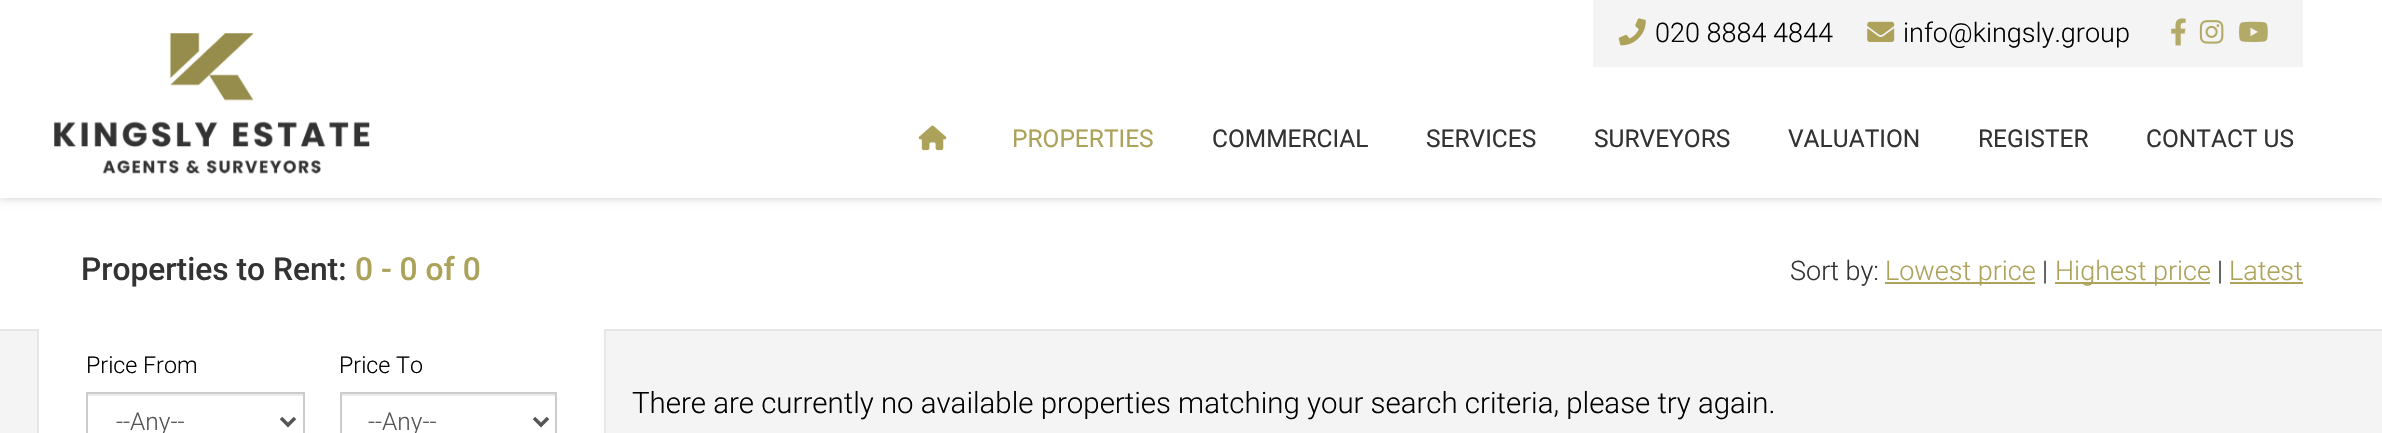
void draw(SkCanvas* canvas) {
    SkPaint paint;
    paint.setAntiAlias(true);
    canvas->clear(0xFFF4F4F4);
    paint.setColor(0xFFFFFFFF);
    canvas->drawRect(SkRect::MakeXYWH(0, 198, 2382, 131), paint);
    paint.setColor(0xFFCCCCCC);
    paint.setMaskFilter(SkMaskFilter::MakeBlur(kNormal_SkBlurStyle, 4.5f));
    canvas->drawRect(SkRect::MakeXYWH(0, 0, 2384, 198), paint);
    paint.setMaskFilter(nullptr);
    paint.setColor(0xFFFFFFFF);
    canvas->drawRect(SkRect::MakeXYWH(0, 0, 2382, 198), paint);
    paint.setColor(0xFFF4F4F4);
    canvas->drawRect(SkRect::MakeXYWH(1593, 0, 710, 67), paint);
    canvas->drawImageRect(SkImages::DeferredFromEncodedData(SkData::MakeFromFileName("img1.png")), SkRect::MakeXYWH(1618, 18, 28, 28), SkSamplingOptions());
    SkFont font1(fontMgr->matchFamilyStyle("Roboto", SkFontStyle(300, SkFontStyle::kNormal_Width, SkFontStyle::kUpright_Slant)), 27);
    font1.setSubpixel(true);
    paint.setColor(0xFF000000);
    canvas->drawString("020 8884 4844", 1655, 42, font1, paint);
    canvas->drawImageRect(SkImages::DeferredFromEncodedData(SkData::MakeFromFileName("img2.png")), SkRect::MakeXYWH(1867, 21, 28, 21), SkSamplingOptions());
    canvas->drawString("info@kingsly.group", 1903, 42, font1, paint);
    canvas->drawImageRect(SkImages::DeferredFromEncodedData(SkData::MakeFromFileName("img3.png")), SkRect::MakeXYWH(2171, 18, 15, 28), SkSamplingOptions());
    canvas->drawImageRect(SkImages::DeferredFromEncodedData(SkData::MakeFromFileName("img4.png")), SkRect::MakeXYWH(2199, 20, 25, 24), SkSamplingOptions());
    canvas->drawImageRect(SkImages::DeferredFromEncodedData(SkData::MakeFromFileName("img5.png")), SkRect::MakeXYWH(2239, 21, 29, 21), SkSamplingOptions());
    canvas->drawImageRect(SkImages::DeferredFromEncodedData(SkData::MakeFromFileName("img6.png")), SkRect::MakeXYWH(54, 33, 316, 141), SkSamplingOptions());
    canvas->drawImageRect(SkImages::DeferredFromEncodedData(SkData::MakeFromFileName("img7.png")), SkRect::MakeXYWH(918, 125, 29, 26), SkSamplingOptions());
    SkFont font2(fontMgr->matchFamilyStyle("Roboto", SkFontStyle::Normal()), 24.5f);
    font2.setSubpixel(true);
    paint.setColor(0xFFACA259);
    canvas->drawString("PROPERTIES", 1012, 147, font2, paint);
    paint.setColor(0xFF333333);
    canvas->drawString("COMMERCIAL", 1212, 147, font2, paint);
    canvas->drawString("SERVICES", 1426, 147, font2, paint);
    canvas->drawString("SURVEYORS", 1594, 147, font2, paint);
    canvas->drawString("VALUATION", 1788, 147, font2, paint);
    canvas->drawString("REGISTER", 1978, 147, font2, paint);
    canvas->drawString("CONTACT US", 2146, 147, font2, paint);
    paint.setColor(0xFFE6E6E6);
    canvas->drawRect(SkRect::MakeXYWH(0, 329, 2382, 2), paint);
    SkFont font3(fontMgr->matchFamilyStyle("Roboto", SkFontStyle(500, SkFontStyle::kNormal_Width, SkFontStyle::kUpright_Slant)), 31.75f);
    font3.setSubpixel(true);
    paint.setColor(0xFF333333);
    canvas->drawString("Properties to Rent:", 81, 280, font3, paint);
    paint.setColor(0xFFACA259);
    canvas->drawString("0 - 0 of 0", 355, 280, font3, paint);
    paint.setColor(0xFF333333);
    canvas->drawString("Sort by:", 1790, 280, font1, paint);
    paint.setColor(0xFFACA259);
    canvas->drawRect(SkRect::MakeXYWH(1885, 282, 150, 2), paint);
    canvas->drawString("Lowest price", 1885, 280, font1, paint);
    paint.setColor(0xFF333333);
    canvas->drawString("|", 2042, 280, font1, paint);
    paint.setColor(0xFFACA259);
    canvas->drawRect(SkRect::MakeXYWH(2055, 282, 155, 2), paint);
    canvas->drawString("Highest price", 2055, 280, font1, paint);
    paint.setColor(0xFF333333);
    canvas->drawString("|", 2217, 280, font1, paint);
    paint.setColor(0xFFACA259);
    canvas->drawString("Latest", 2229, 280, font1, paint);
    canvas->drawRect(SkRect::MakeXYWH(2230, 282, 73, 2), paint);
    paint.setColor(0xFFFFFFFF);
    canvas->drawRect(SkRect::MakeXYWH(39, 329, 565, 104), paint);
    paint.setColor(0xFFE6E6E6);
    canvas->drawRect(SkRect::MakeXYWH(604, 329, 2, 104), paint);
    canvas->drawRect(SkRect::MakeXYWH(37, 329, 2, 104), paint);
    SkFont font4(fontMgr->matchFamilyStyle("Roboto", SkFontStyle(300, SkFontStyle::kNormal_Width, SkFontStyle::kUpright_Slant)), 23.25f);
    font4.setSubpixel(true);
    paint.setColor(0xFF000000);
    canvas->drawString("Price From", 86, 373, font4, paint);
    paint.setColor(0xFFECECEC);
    canvas->drawRect(SkRect::MakeXYWH(88, 394, 215, 2), paint);
    paint.setStyle(SkPaint::kStroke_Style);
    paint.setStrokeWidth(2);
    paint.setColor(0xFFCCCCCC);
    canvas->drawRect(SkRect::MakeXYWH(87, 393, 217, 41), paint);
    paint.setStrokeWidth(3.5f);
    paint.setColor(0xFF555555);
    canvas->drawPath(SkPathBuilder().moveTo(281, 418).lineTo(288, 425).lineTo(295, 418).detach(), paint);
    SkFont font5(fontMgr->matchFamilyStyle("Roboto", SkFontStyle(300, SkFontStyle::kNormal_Width, SkFontStyle::kUpright_Slant)), 24.5f);
    font5.setSubpixel(true);
    paint.setStyle(SkPaint::kFill_Style);
    canvas->drawString("--Any--", 116, 430, font5, paint);
    paint.setColor(0xFF000000);
    canvas->drawString("Price To", 339, 373, font4, paint);
    paint.setColor(0xFFECECEC);
    canvas->drawRect(SkRect::MakeXYWH(341, 394, 214, 2), paint);
    paint.setStyle(SkPaint::kStroke_Style);
    paint.setStrokeWidth(2);
    paint.setColor(0xFFCCCCCC);
    canvas->drawRect(SkRect::MakeXYWH(341, 393, 215, 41), paint);
    paint.setStrokeWidth(3.5f);
    paint.setColor(0xFF555555);
    canvas->drawPath(SkPathBuilder().moveTo(534, 418).lineTo(541, 425).lineTo(548, 418).detach(), paint);
    paint.setStyle(SkPaint::kFill_Style);
    canvas->drawString("--Any--", 368, 430, font5, paint);
    SkFont font6(fontMgr->matchFamilyStyle("Roboto", SkFontStyle(300, SkFontStyle::kNormal_Width, SkFontStyle::kUpright_Slant)), 29.4f);
    font6.setSubpixel(true);
    paint.setColor(0xFF000000);
    canvas->drawString("There are currently no available properties matching your search criteria, please try again.", 632, 413, font6, paint);
}
